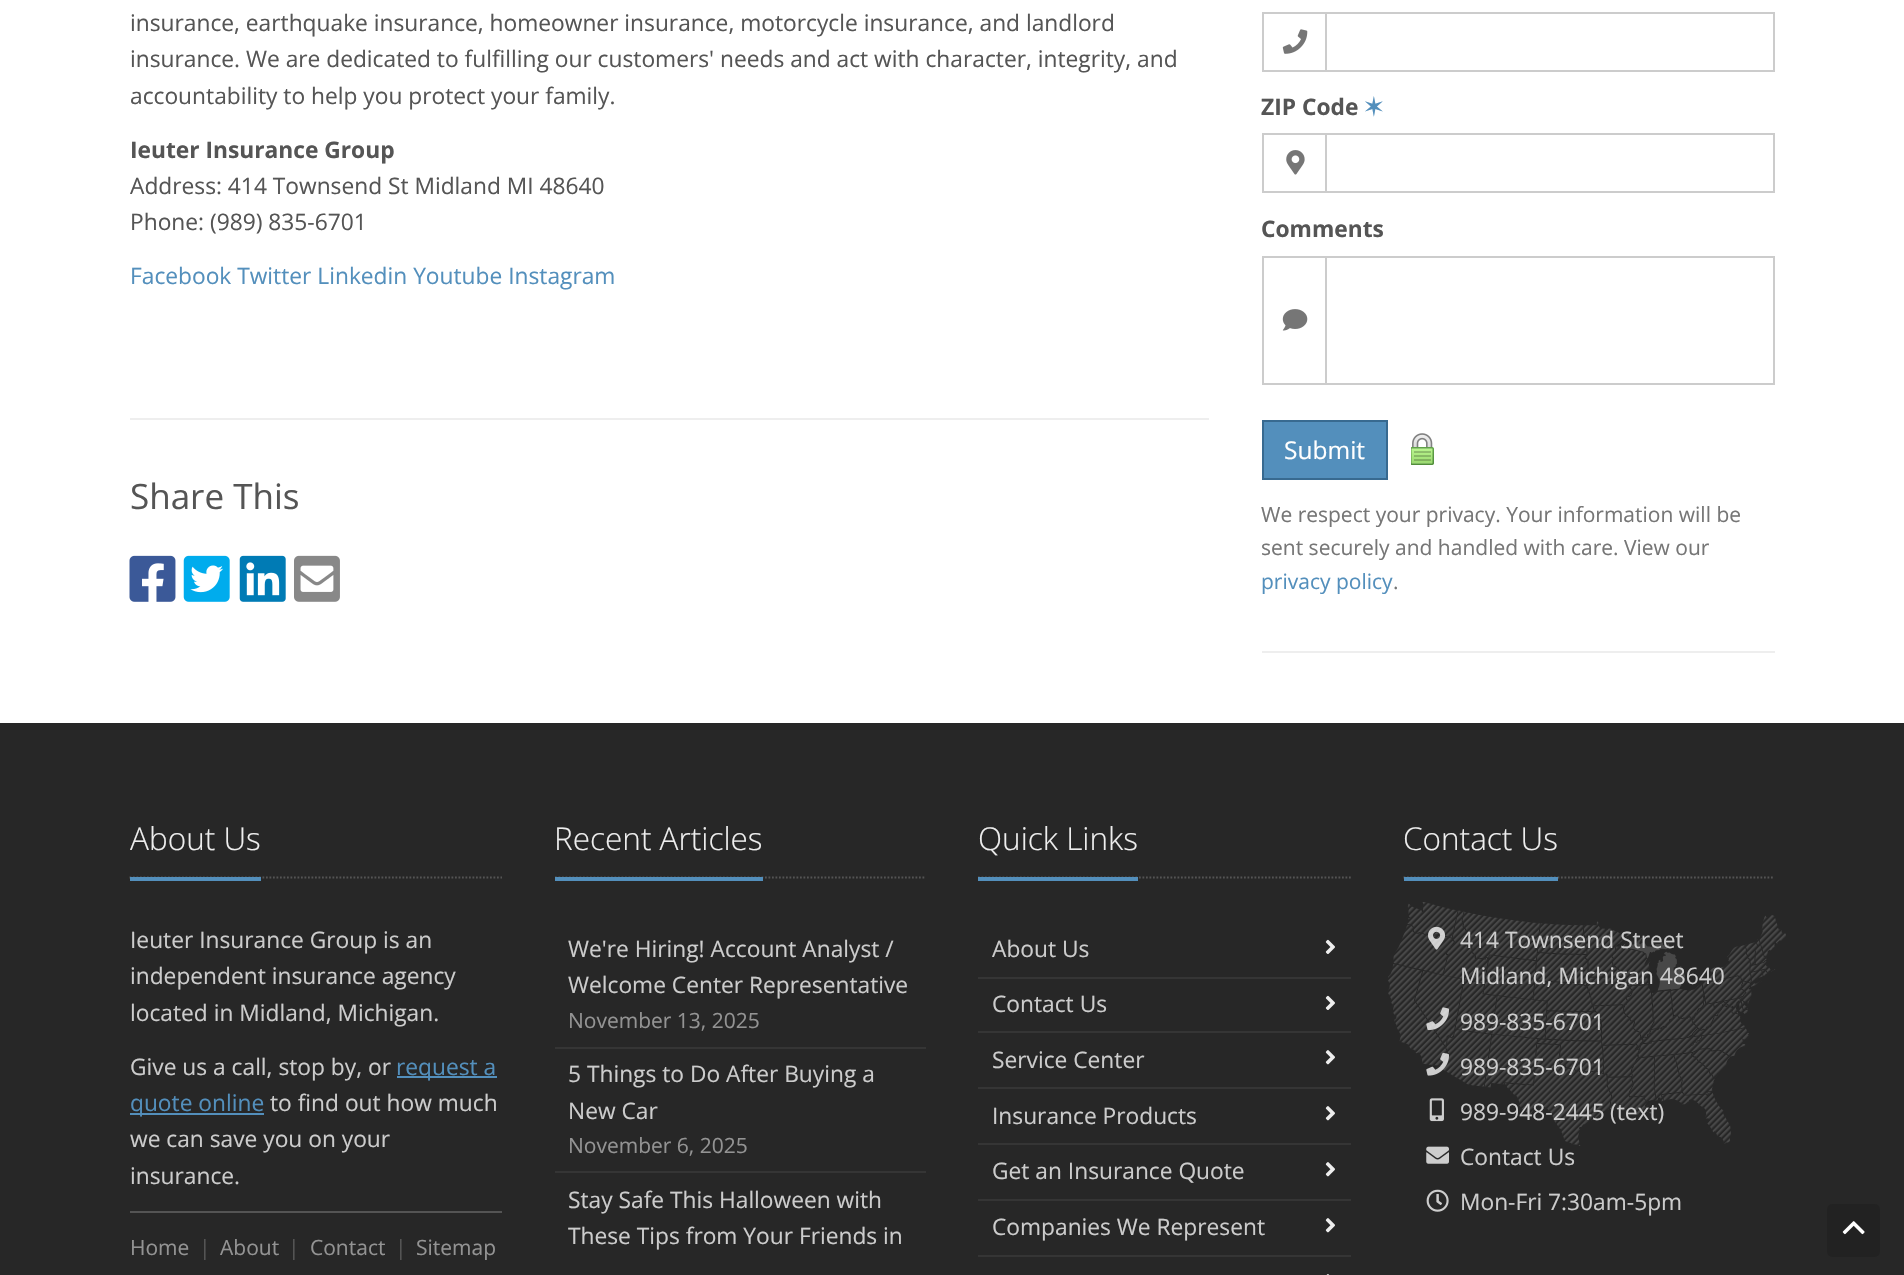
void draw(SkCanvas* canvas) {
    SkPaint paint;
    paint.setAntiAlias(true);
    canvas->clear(0xFFFFFFFF);
    SkFont font1(fontMgr->matchFamilyStyle("Open Sans", SkFontStyle::Normal()), 22.75f);
    font1.setSubpixel(true);
    paint.setColor(0xFF555555);
    canvas->drawString("insurance, earthquake insurance, homeowner insurance, motorcycle insurance, and landlord", 130, 31, font1, paint);
    canvas->drawString("insurance. We are dedicated to fulfilling our customers' needs and act with character, integrity, and", 130, 67, font1, paint);
    canvas->drawString("accountability to help you protect your family.", 130, 104, font1, paint);
    SkFont font2(fontMgr->matchFamilyStyle("Open Sans", SkFontStyle::Bold()), 22.75f);
    font2.setSubpixel(true);
    canvas->drawString("Ieuter Insurance Group", 130, 158, font2, paint);
    canvas->drawString("Address: 414 Townsend St Midland MI 48640", 130, 194, font1, paint);
    canvas->drawString("Phone: (989) 835-6701", 130, 230, font1, paint);
    paint.setColor(0xFF538FBC);
    canvas->drawString("Facebook Twitter Linkedin Youtube Instagram", 130, 284, font1, paint);
    paint.setColor(0xFFEEEEEE);
    canvas->drawRect(SkRect::MakeXYWH(130, 418, 1079, 2), paint);
    SkFont font3(fontMgr->matchFamilyStyle("Open Sans", SkFontStyle::Normal()), 35);
    font3.setSubpixel(true);
    paint.setColor(0xFF555555);
    canvas->drawString("Share This", 130, 509, font3, paint);
    canvas->drawImageRect(SkImages::DeferredFromEncodedData(SkData::MakeFromFileName("img1.png")), SkRect::MakeXYWH(129, 555, 47, 47), SkSamplingOptions());
    canvas->drawImageRect(SkImages::DeferredFromEncodedData(SkData::MakeFromFileName("img2.png")), SkRect::MakeXYWH(183, 555, 47, 47), SkSamplingOptions());
    canvas->drawImageRect(SkImages::DeferredFromEncodedData(SkData::MakeFromFileName("img3.png")), SkRect::MakeXYWH(239, 555, 47, 47), SkSamplingOptions());
    canvas->drawImageRect(SkImages::DeferredFromEncodedData(SkData::MakeFromFileName("img4.png")), SkRect::MakeXYWH(294, 555, 46, 47), SkSamplingOptions());
    paint.setColor(0xFFCCCCCC);
    canvas->drawRect(SkRect::MakeXYWH(1262, 12, 63, 2), paint);
    canvas->drawRect(SkRect::MakeXYWH(1262, 70, 63, 2), paint);
    canvas->drawRect(SkRect::MakeXYWH(1262, 12, 2, 60), paint);
    canvas->drawImageRect(SkImages::DeferredFromEncodedData(SkData::MakeFromFileName("img5.png")), SkRect::MakeXYWH(1282, 29, 26, 25), SkSamplingOptions());
    paint.setStyle(SkPaint::kStroke_Style);
    paint.setStrokeWidth(2);
    canvas->drawRect(SkRect::MakeXYWH(1326, 13, 448, 58), paint);
    paint.setStyle(SkPaint::kFill_Style);
    paint.setColor(0xFF555555);
    canvas->drawString("ZIP Code", 1261, 115, font2, paint);
    SkFont font4(fontMgr->matchFamilyStyle("DejaVu Sans", SkFontStyle::Bold()), 22.75f);
    font4.setSubpixel(true);
    paint.setColor(0xFF538FBC);
    canvas->drawString("✶", 1364, 115, font4, paint);
    paint.setColor(0xFFCCCCCC);
    canvas->drawRect(SkRect::MakeXYWH(1262, 133, 63, 2), paint);
    canvas->drawRect(SkRect::MakeXYWH(1262, 191, 63, 2), paint);
    canvas->drawRect(SkRect::MakeXYWH(1262, 133, 2, 60), paint);
    canvas->drawImageRect(SkImages::DeferredFromEncodedData(SkData::MakeFromFileName("img6.png")), SkRect::MakeXYWH(1286, 150, 19, 25), SkSamplingOptions());
    paint.setStyle(SkPaint::kStroke_Style);
    canvas->drawRect(SkRect::MakeXYWH(1326, 134, 448, 58), paint);
    paint.setStyle(SkPaint::kFill_Style);
    paint.setColor(0xFF555555);
    canvas->drawString("Comments", 1261, 237, font2, paint);
    paint.setColor(0xFFCCCCCC);
    canvas->drawRect(SkRect::MakeXYWH(1262, 256, 63, 2), paint);
    canvas->drawRect(SkRect::MakeXYWH(1262, 383, 63, 2), paint);
    canvas->drawRect(SkRect::MakeXYWH(1262, 256, 2, 129), paint);
    canvas->drawImageRect(SkImages::DeferredFromEncodedData(SkData::MakeFromFileName("img7.png")), SkRect::MakeXYWH(1282, 309, 26, 22), SkSamplingOptions());
    paint.setStyle(SkPaint::kStroke_Style);
    canvas->drawRect(SkRect::MakeXYWH(1326, 257, 448, 127), paint);
    paint.setStyle(SkPaint::kFill_Style);
    paint.setColor(0xFF538FBC);
    canvas->drawRect(SkRect::MakeXYWH(1263, 421, 124, 58), paint);
    paint.setStyle(SkPaint::kStroke_Style);
    paint.setColor(0xFF386A90);
    canvas->drawRect(SkRect::MakeXYWH(1263, 421, 124, 58), paint);
    SkFont font5(fontMgr->matchFamilyStyle("Open Sans", SkFontStyle::Normal()), 24.5f);
    font5.setSubpixel(true);
    paint.setStyle(SkPaint::kFill_Style);
    paint.setColor(0xFFFFFFFF);
    canvas->drawString("Submit", 1284, 459, font5, paint);
    canvas->drawImageRect(SkImages::DeferredFromEncodedData(SkData::MakeFromFileName("img8.png")), SkRect::MakeXYWH(1411, 433, 23, 32), SkSamplingOptions());
    SkFont font6(fontMgr->matchFamilyStyle("Open Sans", SkFontStyle::Normal()), 21);
    font6.setSubpixel(true);
    paint.setColor(0xFF767676);
    canvas->drawString("We respect your privacy. Your information will be", 1261, 522, font6, paint);
    canvas->drawString("sent securely and handled with care. View our", 1261, 555, font6, paint);
    paint.setColor(0xFF538FBC);
    canvas->drawString("privacy policy", 1261, 589, font6, paint);
    paint.setColor(0xFF767676);
    canvas->drawString(".", 1393, 589, font6, paint);
    paint.setColor(0xFFEEEEEE);
    canvas->drawRect(SkRect::MakeXYWH(1262, 651, 513, 2), paint);
    paint.setColor(0xFF272727);
    canvas->drawRect(SkRect::MakeXYWH(0, 723, 1904, 552), paint);
    paint.setStyle(SkPaint::kStroke_Style);
    paint.setStrokeWidth(1.8f);
    paint.setColor(0xFF545454);
    paint.setPathEffect(SkDashPathEffect::Make({{1.75f, 1.75f}}, 0));
    canvas->drawPath(SkPathBuilder().moveTo(129.5f, 877.5f).lineTo(502, 877.5f).detach(), paint);
    paint.setPathEffect(nullptr);
    paint.setStyle(SkPaint::kFill_Style);
    paint.setColor(0xFF538FBC);
    canvas->drawRect(SkRect::MakeXYWH(130, 877, 131, 4), paint);
    SkFont font7(fontMgr->matchFamilyStyle("Open Sans", SkFontStyle(300, SkFontStyle::kNormal_Width, SkFontStyle::kUpright_Slant)), 31.5f);
    font7.setSubpixel(true);
    paint.setColor(0xFFEEEEEE);
    canvas->drawString("About Us", 130, 850, font7, paint);
    paint.setColor(0xFFCCCCCC);
    canvas->drawString("Ieuter Insurance Group is an", 130, 948, font1, paint);
    canvas->drawString("independent insurance agency", 130, 984, font1, paint);
    canvas->drawString("located in Midland, Michigan.", 130, 1021, font1, paint);
    canvas->drawString("Give us a call, stop by, or", 130, 1075, font1, paint);
    paint.setColor(0xFF538FBC);
    canvas->drawRect(SkRect::MakeXYWH(397, 1076, 100, 2), paint);
    canvas->drawString("request a", 396, 1075, font1, paint);
    canvas->drawRect(SkRect::MakeXYWH(130, 1113, 134, 2), paint);
    canvas->drawString("quote online", 130, 1111, font1, paint);
    paint.setColor(0xFFCCCCCC);
    canvas->drawString("to find out how much", 270, 1111, font1, paint);
    canvas->drawString("we can save you on your", 130, 1147, font1, paint);
    canvas->drawString("insurance.", 130, 1184, font1, paint);
    paint.setColor(0xFF545454);
    canvas->drawRect(SkRect::MakeXYWH(130, 1211, 372, 2), paint);
    paint.setColor(0xFF939393);
    canvas->drawString("Home", 130, 1255, font6, paint);
    paint.setColor(0xFF555555);
    canvas->drawString("|", 199, 1255, font6, paint);
    paint.setColor(0xFF939393);
    canvas->drawString("About", 220, 1255, font6, paint);
    paint.setColor(0xFF555555);
    canvas->drawString("|", 288, 1255, font6, paint);
    paint.setColor(0xFF939393);
    canvas->drawString("Contact", 310, 1255, font6, paint);
    paint.setColor(0xFF555555);
    canvas->drawString("|", 395, 1255, font6, paint);
    paint.setColor(0xFF939393);
    canvas->drawString("Sitemap", 416, 1255, font6, paint);
    paint.setStyle(SkPaint::kStroke_Style);
    paint.setColor(0xFF545454);
    paint.setPathEffect(SkDashPathEffect::Make({{1.75f, 1.75f}}, 0));
    canvas->drawPath(SkPathBuilder().moveTo(555, 877.5f).lineTo(926, 877.5f).detach(), paint);
    paint.setPathEffect(nullptr);
    paint.setStyle(SkPaint::kFill_Style);
    paint.setColor(0xFF538FBC);
    canvas->drawRect(SkRect::MakeXYWH(555, 877, 208, 4), paint);
    paint.setColor(0xFFEEEEEE);
    canvas->drawString("Recent Articles", 554, 850, font7, paint);
    paint.setColor(0xFFCCCCCC);
    canvas->drawString("We're Hiring! Account Analyst /", 568, 957, font1, paint);
    canvas->drawString("Welcome Center Representative", 568, 993, font1, paint);
    paint.setColor(0xFF939393);
    canvas->drawString("November 13, 2025", 568, 1028, font6, paint);
    paint.setColor(0xFF353535);
    canvas->drawRect(SkRect::MakeXYWH(555, 1047, 371, 2), paint);
    paint.setColor(0xFFCCCCCC);
    canvas->drawString("5 Things to Do After Buying a", 568, 1082, font1, paint);
    canvas->drawString("New Car", 568, 1119, font1, paint);
    paint.setColor(0xFF939393);
    canvas->drawString("November 6, 2025", 568, 1153, font6, paint);
    paint.setColor(0xFF353535);
    canvas->drawRect(SkRect::MakeXYWH(555, 1171, 371, 2), paint);
    paint.setColor(0xFFCCCCCC);
    canvas->drawString("Stay Safe This Halloween with", 568, 1208, font1, paint);
    canvas->drawString("These Tips from Your Friends in", 568, 1244, font1, paint);
    paint.setStyle(SkPaint::kStroke_Style);
    paint.setColor(0xFF545454);
    paint.setPathEffect(SkDashPathEffect::Make({{1.75f, 1.75f}}, 0));
    canvas->drawPath(SkPathBuilder().moveTo(978, 877.5f).lineTo(1351, 877.5f).detach(), paint);
    paint.setPathEffect(nullptr);
    paint.setStyle(SkPaint::kFill_Style);
    paint.setColor(0xFF538FBC);
    canvas->drawRect(SkRect::MakeXYWH(978, 877, 160, 4), paint);
    paint.setColor(0xFFEEEEEE);
    canvas->drawString("Quick Links", 978, 850, font7, paint);
    paint.setColor(0xFFCCCCCC);
    canvas->drawString("About Us", 992, 957, font1, paint);
    canvas->drawImageRect(SkImages::DeferredFromEncodedData(SkData::MakeFromFileName("img9.png")), SkRect::MakeXYWH(1325, 939, 10, 15), SkSamplingOptions());
    paint.setColor(0xFF353535);
    canvas->drawRect(SkRect::MakeXYWH(978, 977, 373, 2), paint);
    paint.setColor(0xFFCCCCCC);
    canvas->drawString("Contact Us", 992, 1012, font1, paint);
    canvas->drawImageRect(SkImages::DeferredFromEncodedData(SkData::MakeFromFileName("img9.png")), SkRect::MakeXYWH(1325, 995, 10, 15), SkSamplingOptions());
    paint.setColor(0xFF353535);
    canvas->drawRect(SkRect::MakeXYWH(978, 1031, 373, 2), paint);
    paint.setColor(0xFFCCCCCC);
    canvas->drawString("Service Center", 992, 1068, font1, paint);
    canvas->drawImageRect(SkImages::DeferredFromEncodedData(SkData::MakeFromFileName("img10.png")), SkRect::MakeXYWH(1325, 1050, 10, 15), SkSamplingOptions());
    paint.setColor(0xFF353535);
    canvas->drawRect(SkRect::MakeXYWH(978, 1087, 373, 2), paint);
    paint.setColor(0xFFCCCCCC);
    canvas->drawString("Insurance Products", 992, 1124, font1, paint);
    canvas->drawImageRect(SkImages::DeferredFromEncodedData(SkData::MakeFromFileName("img10.png")), SkRect::MakeXYWH(1325, 1106, 10, 15), SkSamplingOptions());
    paint.setColor(0xFF353535);
    canvas->drawRect(SkRect::MakeXYWH(978, 1143, 373, 2), paint);
    paint.setColor(0xFFCCCCCC);
    canvas->drawString("Get an Insurance Quote", 992, 1179, font1, paint);
    canvas->drawImageRect(SkImages::DeferredFromEncodedData(SkData::MakeFromFileName("img10.png")), SkRect::MakeXYWH(1325, 1162, 10, 15), SkSamplingOptions());
    paint.setColor(0xFF353535);
    canvas->drawRect(SkRect::MakeXYWH(978, 1199, 373, 2), paint);
    paint.setColor(0xFFCCCCCC);
    canvas->drawString("Companies We Represent", 992, 1235, font1, paint);
    canvas->drawImageRect(SkImages::DeferredFromEncodedData(SkData::MakeFromFileName("img10.png")), SkRect::MakeXYWH(1325, 1218, 10, 15), SkSamplingOptions());
    paint.setColor(0xFF353535);
    canvas->drawRect(SkRect::MakeXYWH(978, 1255, 373, 2), paint);
    canvas->drawImageRect(SkImages::DeferredFromEncodedData(SkData::MakeFromFileName("img11.png")), SkRect::MakeXYWH(1326, 1274, 4, 1), SkSamplingOptions());
    canvas->drawImageRect(SkImages::DeferredFromEncodedData(SkData::MakeFromFileName("img12.png")), SkRect::MakeXYWH(1388, 902, 398, 244), SkSamplingOptions());
    paint.setStyle(SkPaint::kStroke_Style);
    paint.setColor(0xFF545454);
    paint.setPathEffect(SkDashPathEffect::Make({{1.75f, 1.75f}}, 0));
    canvas->drawPath(SkPathBuilder().moveTo(1403.5f, 877.5f).lineTo(1774.5f, 877.5f).detach(), paint);
    paint.setPathEffect(nullptr);
    paint.setStyle(SkPaint::kFill_Style);
    paint.setColor(0xFF538FBC);
    canvas->drawRect(SkRect::MakeXYWH(1404, 877, 154, 4), paint);
    paint.setColor(0xFFEEEEEE);
    canvas->drawString("Contact Us", 1403, 850, font7, paint);
    canvas->drawImageRect(SkImages::DeferredFromEncodedData(SkData::MakeFromFileName("img13.png")), SkRect::MakeXYWH(1428, 926, 18, 24), SkSamplingOptions());
    paint.setColor(0xFFCCCCCC);
    canvas->drawString("414 Townsend Street", 1460, 948, font1, paint);
    canvas->drawString("Midland, Michigan 48640", 1460, 984, font1, paint);
    canvas->drawImageRect(SkImages::DeferredFromEncodedData(SkData::MakeFromFileName("img14.png")), SkRect::MakeXYWH(1426, 1007, 23, 24), SkSamplingOptions());
    canvas->drawString("989-835-6701", 1460, 1030, font1, paint);
    canvas->drawImageRect(SkImages::DeferredFromEncodedData(SkData::MakeFromFileName("img15.png")), SkRect::MakeXYWH(1426, 1052, 23, 24), SkSamplingOptions());
    canvas->drawString("989-835-6701", 1460, 1075, font1, paint);
    canvas->drawImageRect(SkImages::DeferredFromEncodedData(SkData::MakeFromFileName("img16.png")), SkRect::MakeXYWH(1429, 1098, 15, 24), SkSamplingOptions());
    canvas->drawString("989-948-2445", 1460, 1120, font1, paint);
    canvas->drawString("(text)", 1610, 1120, font1, paint);
    canvas->drawImageRect(SkImages::DeferredFromEncodedData(SkData::MakeFromFileName("img17.png")), SkRect::MakeXYWH(1426, 1146, 23, 18), SkSamplingOptions());
    canvas->drawString("Contact Us", 1460, 1165, font1, paint);
    canvas->drawImageRect(SkImages::DeferredFromEncodedData(SkData::MakeFromFileName("img18.png")), SkRect::MakeXYWH(1426, 1189, 23, 23), SkSamplingOptions());
    canvas->drawString("Mon-Fri 7:30am-5pm", 1460, 1210, font1, paint);
    paint.setColor(0xFF222222);
    canvas->drawRoundRect(SkRect::MakeXYWH(1827, 1204, 53, 53), 5, 5, paint);
    canvas->drawImageRect(SkImages::DeferredFromEncodedData(SkData::MakeFromFileName("img19.png")), SkRect::MakeXYWH(1842, 1221, 23, 14), SkSamplingOptions());
}
